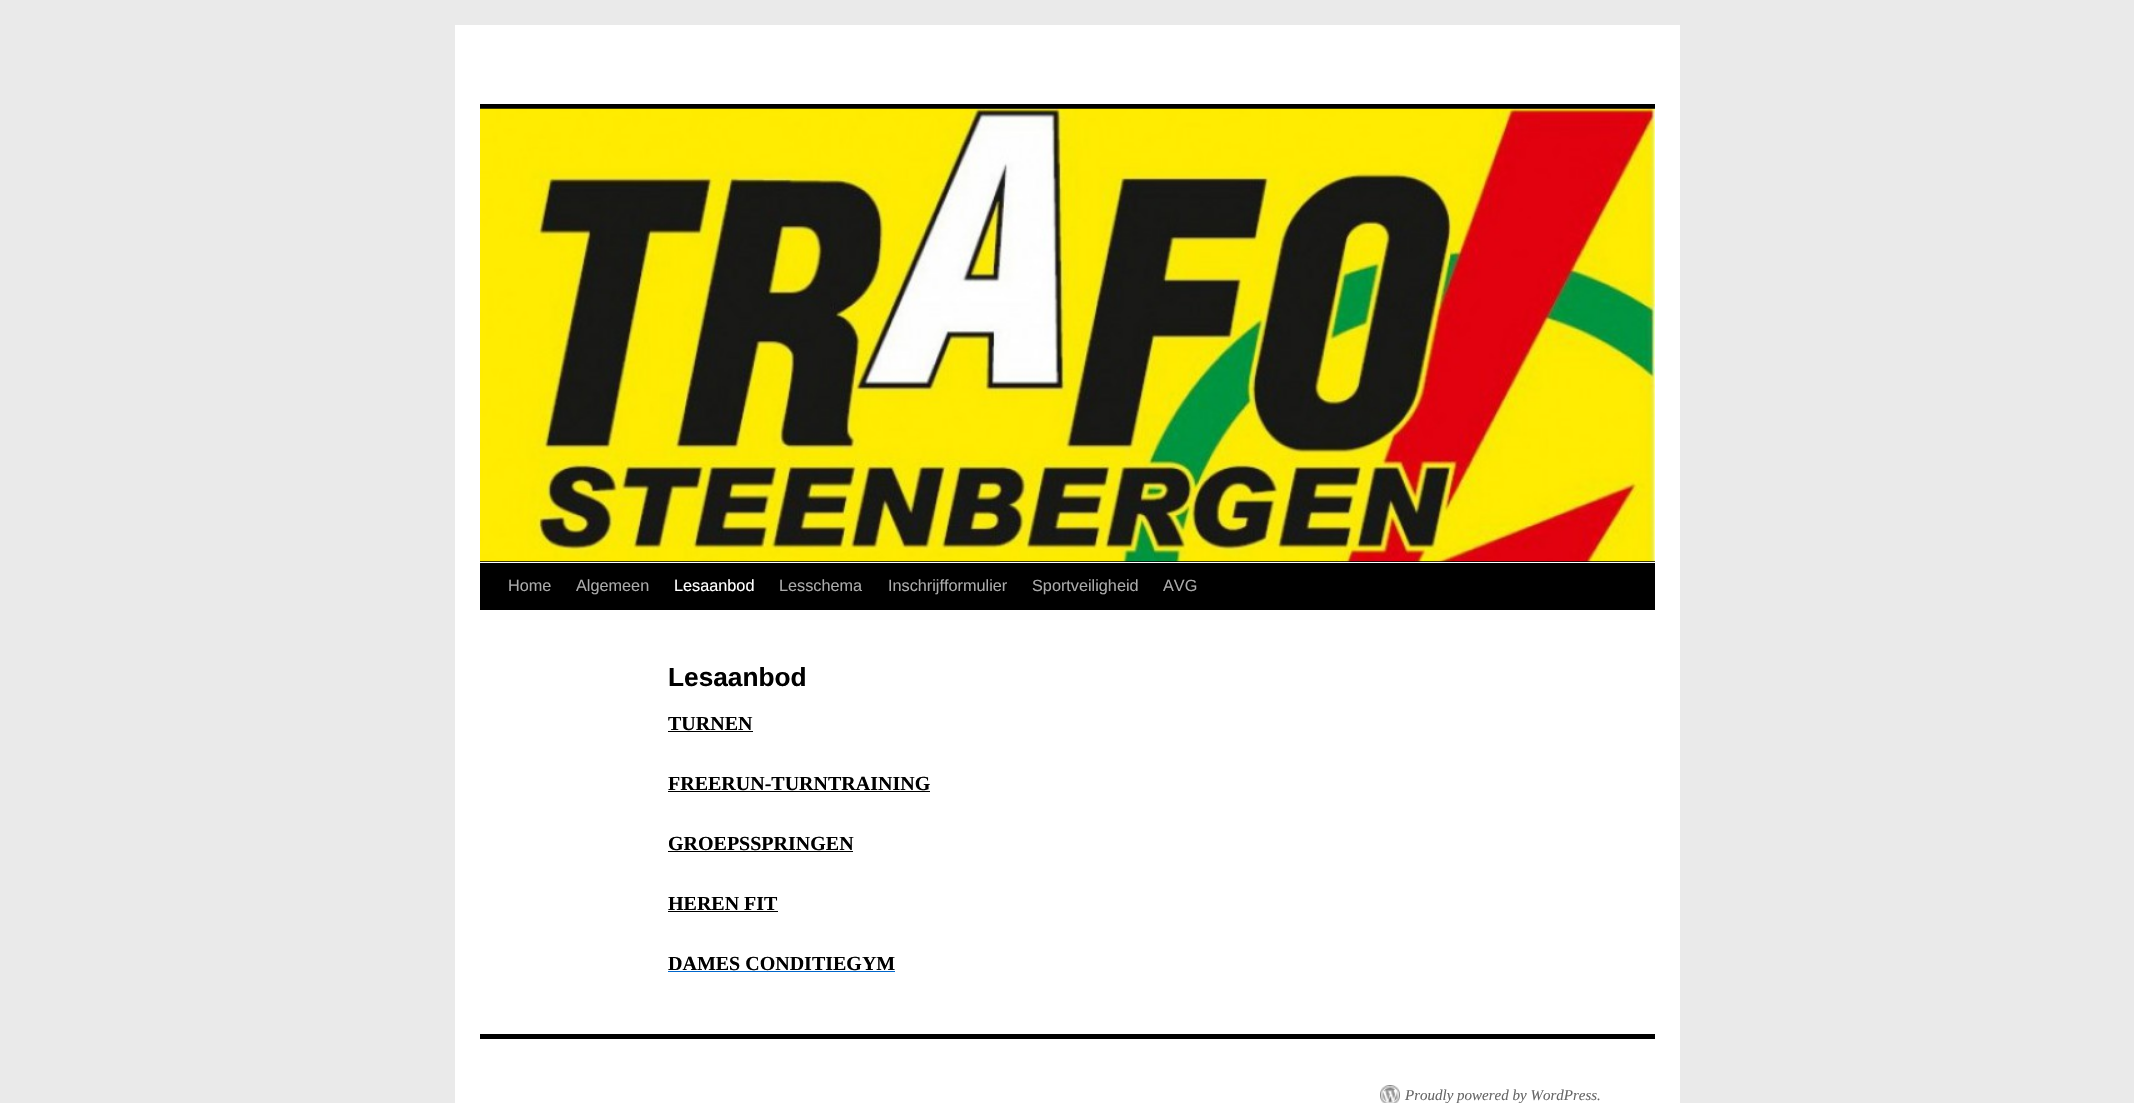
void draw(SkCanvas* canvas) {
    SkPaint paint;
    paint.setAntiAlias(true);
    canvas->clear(0xFFEAEAEA);
    paint.setColor(0xFFFFFFFF);
    canvas->drawRect(SkRect::MakeXYWH(455, 25, 1225, 1078), paint);
    paint.setColor(0xFF000000);
    canvas->drawRect(SkRect::MakeXYWH(480, 104, 1175, 5), paint);
    canvas->drawRect(SkRect::MakeXYWH(480, 561, 1175, 1), paint);
    canvas->drawImageRect(SkImages::DeferredFromEncodedData(SkData::MakeFromFileName("img1.png")), SkRect::MakeXYWH(480, 108, 1175, 454), SkSamplingOptions());
    canvas->drawRect(SkRect::MakeXYWH(480, 563, 1175, 47), paint);
    SkFont font1(fontMgr->matchFamilyStyle("Liberation Sans", SkFontStyle::Normal()), 16.25f);
    font1.setSubpixel(true);
    paint.setColor(0xFFAAAAAA);
    canvas->drawString("Home", 508, 591, font1, paint);
    canvas->drawString("Algemeen", 576, 591, font1, paint);
    paint.setColor(0xFFFFFFFF);
    canvas->drawString("Lesaanbod", 674, 591, font1, paint);
    paint.setColor(0xFFAAAAAA);
    canvas->drawString("Lesschema", 779, 591, font1, paint);
    canvas->drawString("Inschrijfformulier", 888, 591, font1, paint);
    canvas->drawString("Sportveiligheid", 1032, 591, font1, paint);
    canvas->drawString("AVG", 1163, 591, font1, paint);
    SkFont font2(fontMgr->matchFamilyStyle("Liberation Sans", SkFontStyle::Bold()), 26.25f);
    font2.setSubpixel(true);
    paint.setColor(0xFF000000);
    canvas->drawString("Lesaanbod", 668, 686, font2, paint);
    SkFont font3(fontMgr->matchFamilyStyle("Liberation Serif", SkFontStyle::Bold()), 20);
    font3.setSubpixel(true);
    canvas->drawString("TURNEN", 668, 730, font3, paint);
    canvas->drawRect(SkRect::MakeXYWH(668, 731, 85, 1), paint);
    canvas->drawString("FREERUN-TURNTRAINING", 668, 790, font3, paint);
    canvas->drawRect(SkRect::MakeXYWH(668, 791, 262, 1), paint);
    canvas->drawString("GROEPSSPRINGEN", 668, 850, font3, paint);
    canvas->drawRect(SkRect::MakeXYWH(668, 851, 185, 1), paint);
    canvas->drawString("HEREN FIT", 668, 910, font3, paint);
    canvas->drawRect(SkRect::MakeXYWH(668, 911, 110, 1), paint);
    canvas->drawString("DAMES CONDITIEGYM", 668, 970, font3, paint);
    paint.setColor(0xFF0066CC);
    canvas->drawRect(SkRect::MakeXYWH(668, 971, 227, 1), paint);
    paint.setColor(0xFF000000);
    canvas->drawRect(SkRect::MakeXYWH(480, 1034, 1175, 5), paint);
    canvas->drawImageRect(SkImages::DeferredFromEncodedData(SkData::MakeFromFileName("img2.png")), SkRect::MakeXYWH(1380, 1085, 20, 18), SkSamplingOptions());
    SkFont font4(fontMgr->matchFamilyStyle("Liberation Serif", SkFontStyle::Italic()), 15);
    font4.setSubpixel(true);
    paint.setColor(0xFF666666);
    canvas->drawString("Proudly powered by WordPress.", 1405, 1100, font4, paint);
}
